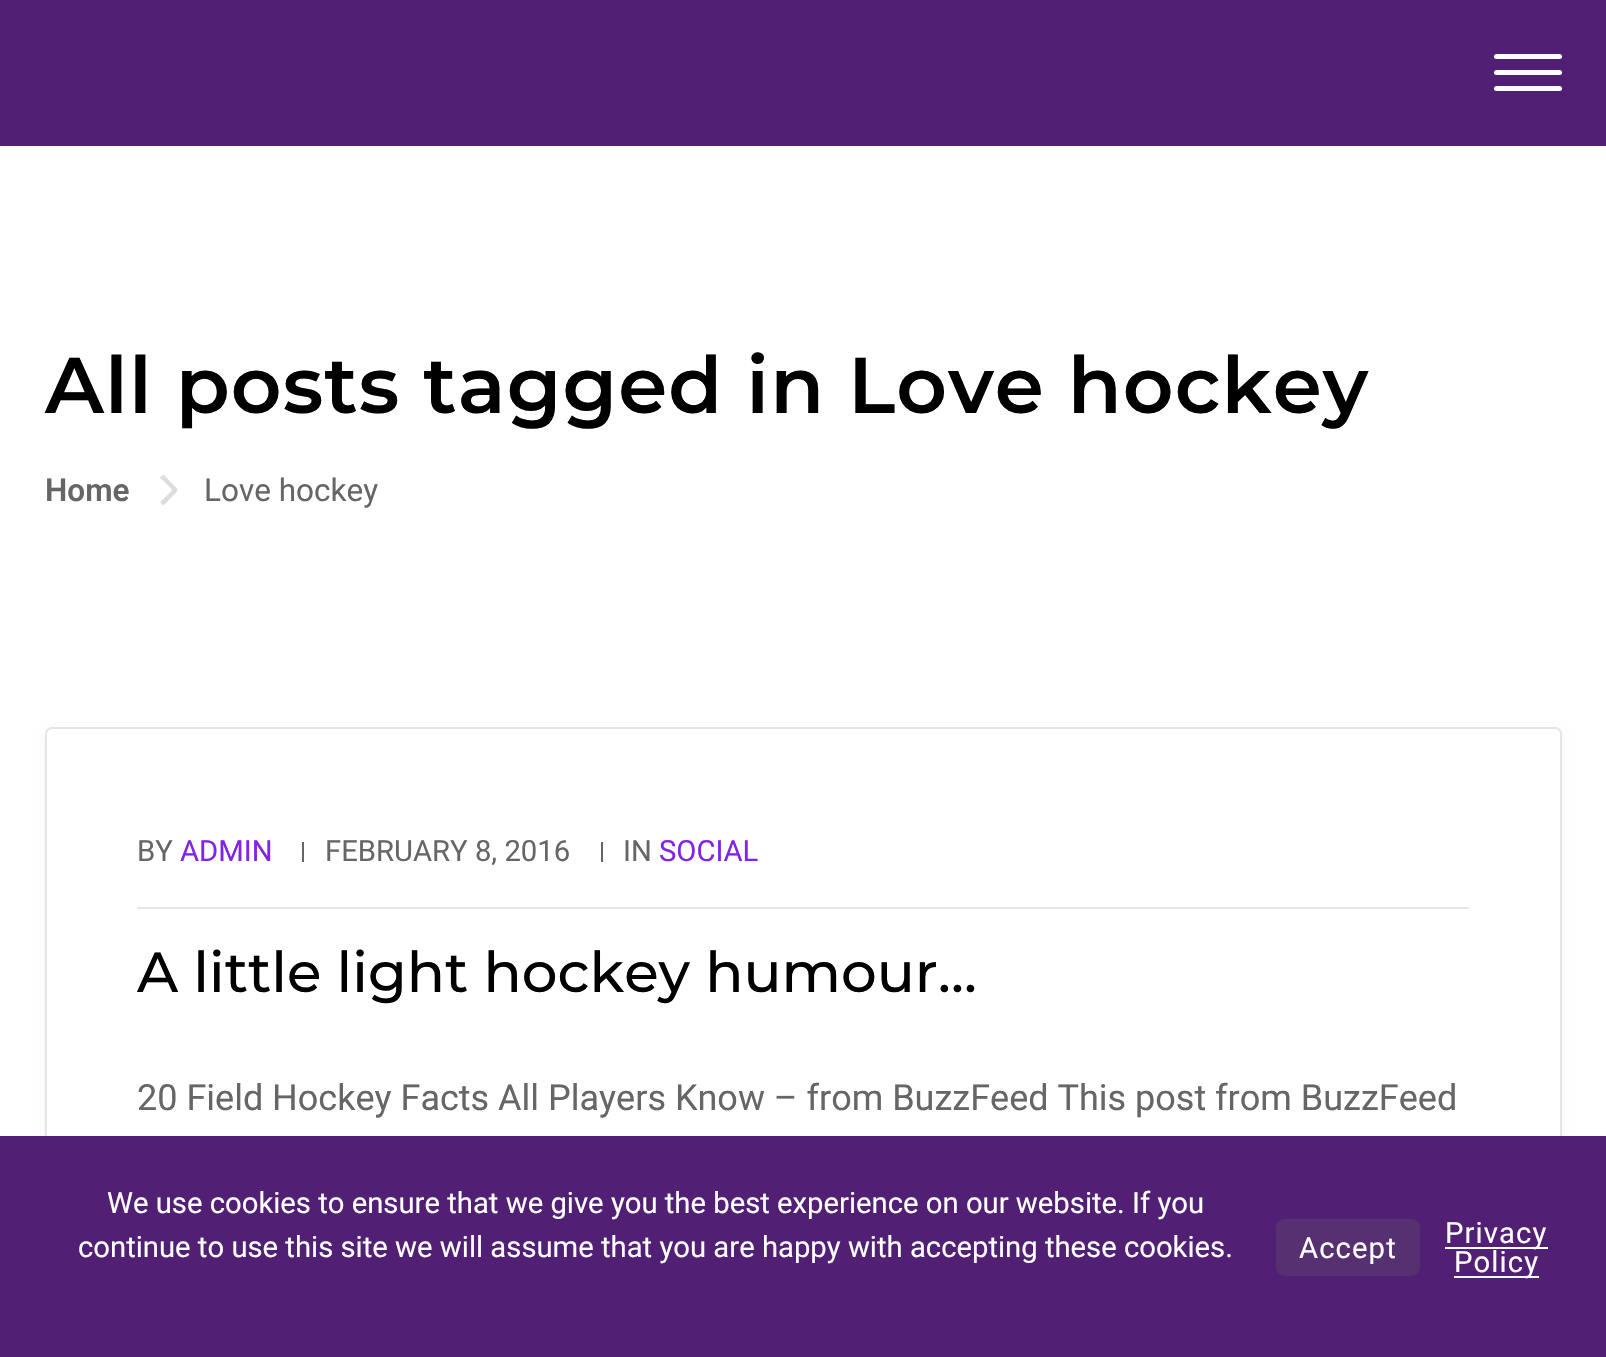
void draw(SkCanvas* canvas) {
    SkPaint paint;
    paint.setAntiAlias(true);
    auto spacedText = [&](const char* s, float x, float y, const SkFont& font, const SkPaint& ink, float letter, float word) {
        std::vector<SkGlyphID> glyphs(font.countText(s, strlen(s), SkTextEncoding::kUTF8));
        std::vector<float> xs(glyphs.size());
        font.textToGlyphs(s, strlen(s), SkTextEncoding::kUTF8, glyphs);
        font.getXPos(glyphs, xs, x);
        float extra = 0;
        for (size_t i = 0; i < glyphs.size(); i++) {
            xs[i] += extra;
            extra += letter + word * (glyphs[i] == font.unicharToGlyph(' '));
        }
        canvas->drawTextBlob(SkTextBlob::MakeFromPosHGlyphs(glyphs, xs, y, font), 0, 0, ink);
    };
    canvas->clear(0xFFFFFFFF);
    paint.setColor(0xFF512075);
    canvas->drawRect(SkRect::MakeXYWH(0, 0, 1606, 146), paint);
    paint.setColor(0xFFFFFFFF);
    canvas->drawRoundRect(SkRect::MakeXYWH(1494, 86, 68, 5), 2.5f, 2.5f, paint);
    canvas->drawRoundRect(SkRect::MakeXYWH(1494, 54, 68, 5), 2.5f, 2.5f, paint);
    canvas->drawRoundRect(SkRect::MakeXYWH(1494, 70, 68, 5), 2.5f, 2.5f, paint);
    SkFont font1(fontMgr->matchFamilyStyle("Montserrat", SkFontStyle(600, SkFontStyle::kNormal_Width, SkFontStyle::kUpright_Slant)), 78.75f);
    font1.setSubpixel(true);
    paint.setColor(0xFF000000);
    spacedText("All posts tagged in Love hockey", 45, 413, font1, paint, 1.1f, 0);
    SkFont font2(fontMgr->matchFamilyStyle("Roboto", SkFontStyle(600, SkFontStyle::kNormal_Width, SkFontStyle::kUpright_Slant)), 31.5f);
    font2.setSubpixel(true);
    paint.setColor(0xFF666666);
    canvas->drawString("Home", 45, 501, font2, paint);
    paint.setColor(0xFFDDDDDD);
    canvas->drawPath(SkPathBuilder().moveTo(177.5f, 491).lineTo(163.5f, 505.5f).lineTo(160, 502.5f).lineTo(174.5f, 488).close().detach(), paint);
    canvas->drawPath(SkPathBuilder().moveTo(163.5f, 474.5f).lineTo(177.5f, 489).lineTo(174.5f, 492).lineTo(160, 477.5f).close().detach(), paint);
    SkFont font3(fontMgr->matchFamilyStyle("Roboto", SkFontStyle::Normal()), 31.5f);
    font3.setSubpixel(true);
    paint.setColor(0xFF666666);
    canvas->drawString("Love hockey", 204, 501, font3, paint);
    paint.setColor(0x0D000000);
    paint.setMaskFilter(SkMaskFilter::MakeBlur(kNormal_SkBlurStyle, 4.5f));
    canvas->drawRect(SkRect::MakeXYWH(45, 734, 1517, 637), paint);
    paint.setMaskFilter(nullptr);
    paint.setColor(0xFFFFFFFF);
    canvas->drawRoundRect(SkRect::MakeXYWH(46, 728, 1515, 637), 6, 6, paint);
    paint.setStyle(SkPaint::kStroke_Style);
    paint.setStrokeWidth(2);
    paint.setColor(0xFFE5E5E5);
    canvas->drawRoundRect(SkRect::MakeXYWH(46, 728, 1515, 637), 6, 6, paint);
    paint.setStyle(SkPaint::kFill_Style);
    paint.setColor(0xFFE6E6E6);
    canvas->drawRect(SkRect::MakeXYWH(137, 907, 1332, 2), paint);
    SkFont font4(fontMgr->matchFamilyStyle("Roboto", SkFontStyle::Normal()), 29.25f);
    font4.setSubpixel(true);
    paint.setColor(0xFF666666);
    canvas->drawString("BY", 137, 861, font4, paint);
    paint.setColor(0xFF8224E3);
    canvas->drawString("ADMIN", 180, 861, font4, paint);
    paint.setColor(0xFF666666);
    canvas->drawRect(SkRect::MakeXYWH(302, 842, 2, 20), paint);
    canvas->drawString("FEBRUARY 8, 2016", 325, 861, font4, paint);
    canvas->drawRect(SkRect::MakeXYWH(601, 842, 2, 20), paint);
    canvas->drawString("IN", 623, 861, font4, paint);
    paint.setColor(0xFF8224E3);
    canvas->drawString("SOCIAL", 659, 861, font4, paint);
    SkFont font5(fontMgr->matchFamilyStyle("Montserrat", SkFontStyle(500, SkFontStyle::kNormal_Width, SkFontStyle::kUpright_Slant)), 56.25f);
    font5.setSubpixel(true);
    paint.setColor(0xFF000000);
    canvas->drawString("A little light hockey humour…", 137, 992, font5, paint);
    SkFont font6(fontMgr->matchFamilyStyle("Roboto", SkFontStyle::Normal()), 36);
    font6.setSubpixel(true);
    paint.setColor(0xFF666666);
    canvas->drawString("20 Field Hockey Facts All Players Know – from BuzzFeed This post from BuzzFeed", 137, 1110, font6, paint);
    paint.setColor(0xFF511F74);
    canvas->drawRect(SkRect::MakeXYWH(0, 1136, 1606, 221), paint);
    paint.setColor(0xFFFFFFFF);
    canvas->drawString("We use cookies to ensure that we give you the best experience on our website. If you", 107, 1213, font4, paint);
    canvas->drawString("continue to use this site we will assume that you are happy with accepting these cookies.", 78, 1257, font4, paint);
    paint.setColor(0xFF573072);
    canvas->drawRoundRect(SkRect::MakeXYWH(1275, 1218, 146, 59), 10, 10, paint);
    paint.setStyle(SkPaint::kStroke_Style);
    paint.setColor(0xFF511F74);
    canvas->drawRoundRect(SkRect::MakeXYWH(1275, 1218, 146, 59), 10, 10, paint);
    paint.setStyle(SkPaint::kFill_Style);
    paint.setColor(0xFFFFFFFF);
    spacedText("Accept", 1299, 1258, font4, paint, 1.1f, 0);
    canvas->drawRect(SkRect::MakeXYWH(1445, 1247, 103, 2), paint);
    spacedText("Privacy", 1445, 1243, font4, paint, 1.1f, 0);
    canvas->drawRect(SkRect::MakeXYWH(1454, 1276, 85, 2), paint);
    spacedText("Policy", 1454, 1272, font4, paint, 1.1f, 0);
}
